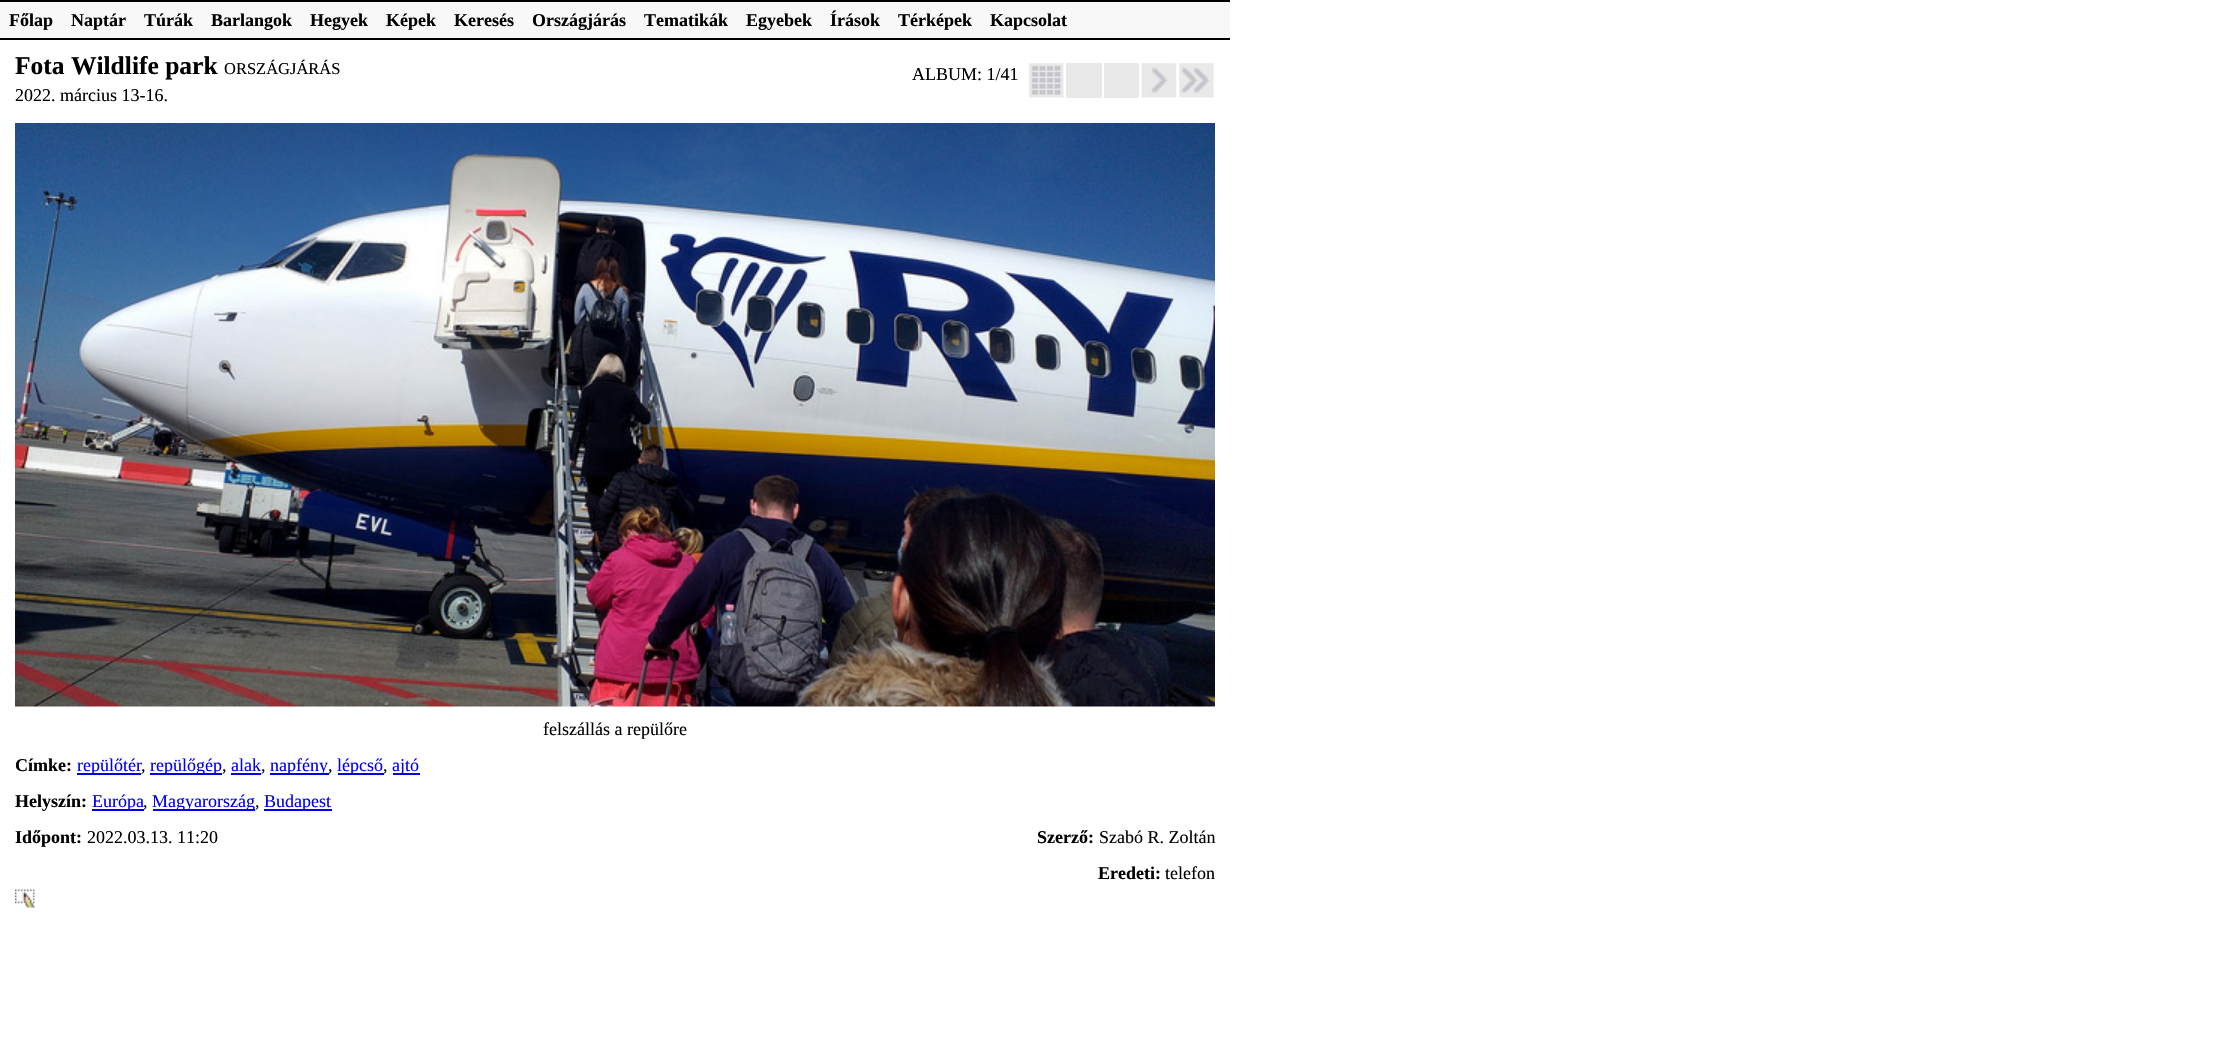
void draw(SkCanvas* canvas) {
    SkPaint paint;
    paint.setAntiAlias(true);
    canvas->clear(0xFFFFFFFF);
    paint.setColor(0xFFF8F8F8);
    canvas->drawRect(SkRect::MakeXYWH(0, 2, 1230, 36), paint);
    paint.setColor(0xFF000000);
    canvas->drawRect(SkRect::MakeXYWH(0, 0, 1230, 2), paint);
    canvas->drawRect(SkRect::MakeXYWH(0, 38, 1230, 2), paint);
    SkFont font1(fontMgr->matchFamilyStyle("Liberation Serif", SkFontStyle::Bold()), 18);
    font1.setSubpixel(true);
    canvas->drawString("Főlap", 9, 26, font1, paint);
    canvas->drawString("Naptár", 71, 26, font1, paint);
    canvas->drawString("Túrák", 144, 26, font1, paint);
    canvas->drawString("Barlangok", 211, 26, font1, paint);
    canvas->drawString("Hegyek", 310, 26, font1, paint);
    canvas->drawString("Képek", 386, 26, font1, paint);
    canvas->drawString("Keresés", 454, 26, font1, paint);
    canvas->drawString("Országjárás", 532, 26, font1, paint);
    canvas->drawString("Tematikák", 644, 26, font1, paint);
    canvas->drawString("Egyebek", 746, 26, font1, paint);
    canvas->drawString("Írások", 830, 26, font1, paint);
    canvas->drawString("Térképek", 898, 26, font1, paint);
    canvas->drawString("Kapcsolat", 990, 26, font1, paint);
    SkFont font2(fontMgr->matchFamilyStyle("Liberation Serif", SkFontStyle::Bold()), 25.5f);
    font2.setSubpixel(true);
    canvas->drawString("Fota Wildlife park", 15, 74, font2, paint);
    SkFont font3(fontMgr->matchFamilyStyle("Liberation Serif", SkFontStyle::Normal()), 16.5f);
    font3.setSubpixel(true);
    canvas->drawString("ORSZÁGJÁRÁS", 224, 74, font3, paint);
    SkFont font4(fontMgr->matchFamilyStyle("Liberation Serif", SkFontStyle::Normal()), 18);
    font4.setSubpixel(true);
    canvas->drawString("2022. március 13-16.", 15, 101, font4, paint);
    canvas->drawString("ALBUM: 1/41", 912, 80, font4, paint);
    canvas->drawImageRect(SkImages::DeferredFromEncodedData(SkData::MakeFromFileName("img1.png")), SkRect::MakeXYWH(1029, 63, 35, 35), SkSamplingOptions());
    paint.setColor(0xFFE9E9E9);
    canvas->drawRect(SkRect::MakeXYWH(1066, 63, 36, 35), paint);
    canvas->drawRect(SkRect::MakeXYWH(1104, 63, 35, 35), paint);
    canvas->drawImageRect(SkImages::DeferredFromEncodedData(SkData::MakeFromFileName("img2.png")), SkRect::MakeXYWH(1141, 63, 36, 35), SkSamplingOptions());
    canvas->drawImageRect(SkImages::DeferredFromEncodedData(SkData::MakeFromFileName("img3.png")), SkRect::MakeXYWH(1179, 63, 35, 35), SkSamplingOptions());
    canvas->drawImageRect(SkImages::DeferredFromEncodedData(SkData::MakeFromFileName("img4.png")), SkRect::MakeXYWH(15, 123, 1200, 584), SkSamplingOptions());
    paint.setColor(0xFF000000);
    canvas->drawString("felszállás a repülőre", 543, 735, font4, paint);
    canvas->drawString("Címke:", 15, 771, font1, paint);
    paint.setColor(0xFF0000EE);
    canvas->drawRect(SkRect::MakeXYWH(77, 773, 64, 2), paint);
    canvas->drawString("repülőtér", 77, 771, font4, paint);
    paint.setColor(0xFF000000);
    canvas->drawString(",", 141, 771, font4, paint);
    paint.setColor(0xFF0000EE);
    canvas->drawRect(SkRect::MakeXYWH(150, 773, 72, 2), paint);
    canvas->drawString("repülőgép", 150, 771, font4, paint);
    paint.setColor(0xFF000000);
    canvas->drawString(",", 222, 771, font4, paint);
    paint.setColor(0xFF0000EE);
    canvas->drawString("alak", 231, 771, font4, paint);
    canvas->drawRect(SkRect::MakeXYWH(231, 773, 30, 2), paint);
    paint.setColor(0xFF000000);
    canvas->drawString(",", 261, 771, font4, paint);
    paint.setColor(0xFF0000EE);
    canvas->drawRect(SkRect::MakeXYWH(270, 773, 59, 2), paint);
    canvas->drawString("napfény", 270, 771, font4, paint);
    paint.setColor(0xFF000000);
    canvas->drawString(",", 328, 771, font4, paint);
    paint.setColor(0xFF0000EE);
    canvas->drawRect(SkRect::MakeXYWH(338, 773, 46, 2), paint);
    canvas->drawString("lépcső", 337, 771, font4, paint);
    paint.setColor(0xFF000000);
    canvas->drawString(",", 383, 771, font4, paint);
    paint.setColor(0xFF0000EE);
    canvas->drawRect(SkRect::MakeXYWH(393, 773, 27, 2), paint);
    canvas->drawString("ajtó", 392, 771, font4, paint);
    paint.setColor(0xFF000000);
    canvas->drawString("Helyszín:", 15, 807, font1, paint);
    paint.setColor(0xFF0000EE);
    canvas->drawRect(SkRect::MakeXYWH(92, 809, 52, 2), paint);
    canvas->drawString("Európa", 92, 807, font4, paint);
    paint.setColor(0xFF000000);
    canvas->drawString(",", 143, 807, font4, paint);
    paint.setColor(0xFF0000EE);
    canvas->drawRect(SkRect::MakeXYWH(153, 809, 102, 2), paint);
    canvas->drawString("Magyarország", 152, 807, font4, paint);
    paint.setColor(0xFF000000);
    canvas->drawString(",", 255, 807, font4, paint);
    paint.setColor(0xFF0000EE);
    canvas->drawRect(SkRect::MakeXYWH(264, 809, 68, 2), paint);
    canvas->drawString("Budapest", 264, 807, font4, paint);
    paint.setColor(0xFF000000);
    canvas->drawString("Időpont:", 15, 843, font1, paint);
    canvas->drawString("2022.03.13. 11:20", 87, 843, font4, paint);
    canvas->drawString("Szerző:", 1037, 843, font1, paint);
    canvas->drawString("Szabó R. Zoltán", 1099, 843, font4, paint);
    canvas->drawString("Eredeti:", 1098, 879, font1, paint);
    canvas->drawString("telefon", 1165, 879, font4, paint);
    canvas->drawImageRect(SkImages::DeferredFromEncodedData(SkData::MakeFromFileName("img5.png")), SkRect::MakeXYWH(15, 889, 20, 19), SkSamplingOptions());
}
